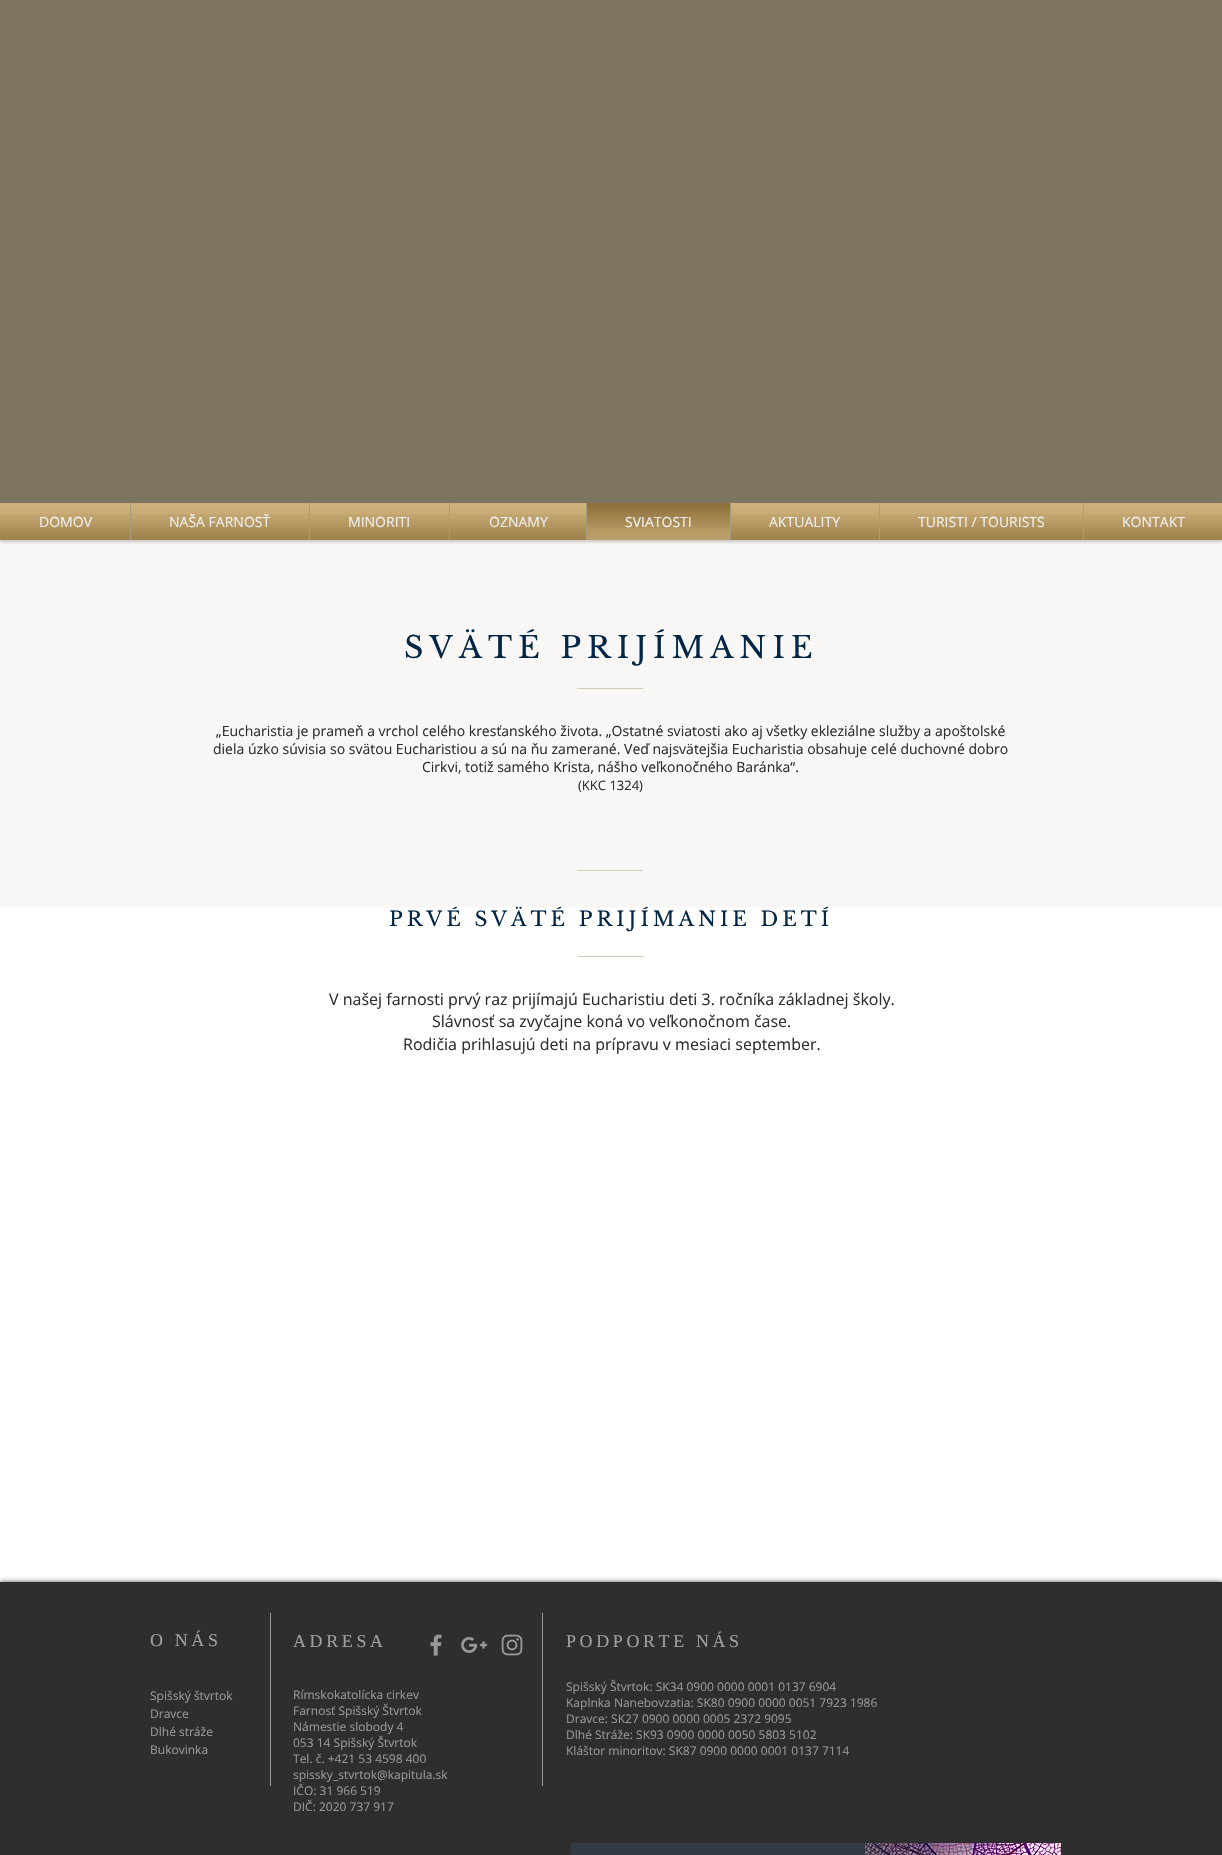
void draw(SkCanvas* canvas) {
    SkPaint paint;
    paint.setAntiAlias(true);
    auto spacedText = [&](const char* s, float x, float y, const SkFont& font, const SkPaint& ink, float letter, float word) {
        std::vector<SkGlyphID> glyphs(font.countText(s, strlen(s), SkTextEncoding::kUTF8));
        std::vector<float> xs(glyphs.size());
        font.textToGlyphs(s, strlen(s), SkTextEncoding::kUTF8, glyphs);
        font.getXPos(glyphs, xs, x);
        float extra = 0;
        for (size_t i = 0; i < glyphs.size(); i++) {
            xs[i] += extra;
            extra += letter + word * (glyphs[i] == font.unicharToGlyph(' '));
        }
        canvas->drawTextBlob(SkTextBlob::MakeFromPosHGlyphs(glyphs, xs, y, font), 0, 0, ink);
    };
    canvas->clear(0xFFFFFFFF);
    paint.setColor(0xFF7D7560);
    canvas->drawRect(SkRect::MakeXYWH(0, 0, 1222, 503), paint);
    paint.setColor(0x99A29E9E);
    paint.setMaskFilter(SkMaskFilter::MakeBlur(kNormal_SkBlurStyle, 1.5f));
    canvas->drawRect(SkRect::MakeXYWH(0, 505, 1222, 37), paint);
    paint.setMaskFilter(nullptr);
    paint.setColor(0xFFBF9C5C);
    canvas->drawRect(SkRect::MakeXYWH(0, 503, 130, 37), paint);
    SkFont font1(fontMgr->matchFamilyStyle("Open Sans", SkFontStyle::Normal()), 14);
    font1.setSubpixel(true);
    paint.setColor(0xFFFFFFFF);
    canvas->drawString("DOMOV", 39, 527, font1, paint);
    canvas->drawImageRect(SkImages::DeferredFromEncodedData(SkData::MakeFromFileName("img1.png")), SkRect::MakeXYWH(0, 503, 130, 32), SkSamplingOptions());
    canvas->drawImageRect(SkImages::DeferredFromEncodedData(SkData::MakeFromFileName("img2.png")), SkRect::MakeXYWH(0, 514, 130, 26), SkSamplingOptions());
    paint.setColor(0xFFBF9C5C);
    canvas->drawRect(SkRect::MakeXYWH(131, 503, 178, 37), paint);
    paint.setColor(0xFFA69C80);
    canvas->drawRect(SkRect::MakeXYWH(130, 503, 1, 37), paint);
    paint.setColor(0xFFFFFFFF);
    canvas->drawString("NAŠA FARNOSŤ", 169, 527, font1, paint);
    canvas->drawImageRect(SkImages::DeferredFromEncodedData(SkData::MakeFromFileName("img3.png")), SkRect::MakeXYWH(131, 503, 178, 32), SkSamplingOptions());
    canvas->drawImageRect(SkImages::DeferredFromEncodedData(SkData::MakeFromFileName("img4.png")), SkRect::MakeXYWH(131, 514, 178, 26), SkSamplingOptions());
    paint.setColor(0xFFBF9C5C);
    canvas->drawRect(SkRect::MakeXYWH(310, 503, 139, 37), paint);
    paint.setColor(0xFFA69C80);
    canvas->drawRect(SkRect::MakeXYWH(309, 503, 1, 37), paint);
    paint.setColor(0xFFFFFFFF);
    canvas->drawString("MINORITI", 348, 527, font1, paint);
    canvas->drawImageRect(SkImages::DeferredFromEncodedData(SkData::MakeFromFileName("img5.png")), SkRect::MakeXYWH(310, 503, 139, 32), SkSamplingOptions());
    canvas->drawImageRect(SkImages::DeferredFromEncodedData(SkData::MakeFromFileName("img6.png")), SkRect::MakeXYWH(310, 514, 139, 26), SkSamplingOptions());
    paint.setColor(0xFFBF9C5C);
    canvas->drawRect(SkRect::MakeXYWH(450, 503, 136, 37), paint);
    paint.setColor(0xFFA69C80);
    canvas->drawRect(SkRect::MakeXYWH(449, 503, 1, 37), paint);
    paint.setColor(0xFFFFFFFF);
    canvas->drawString("OZNAMY", 489, 527, font1, paint);
    canvas->drawImageRect(SkImages::DeferredFromEncodedData(SkData::MakeFromFileName("img7.png")), SkRect::MakeXYWH(450, 503, 136, 32), SkSamplingOptions());
    canvas->drawImageRect(SkImages::DeferredFromEncodedData(SkData::MakeFromFileName("img8.png")), SkRect::MakeXYWH(450, 514, 136, 26), SkSamplingOptions());
    paint.setColor(0xFFA88545);
    canvas->drawRect(SkRect::MakeXYWH(587, 503, 143, 37), paint);
    paint.setColor(0xFFA69C80);
    canvas->drawRect(SkRect::MakeXYWH(586, 503, 1, 37), paint);
    paint.setColor(0xFFFFFFFF);
    canvas->drawString("SVIATOSTI", 625, 527, font1, paint);
    canvas->drawImageRect(SkImages::DeferredFromEncodedData(SkData::MakeFromFileName("img9.png")), SkRect::MakeXYWH(587, 503, 143, 25), SkSamplingOptions());
    canvas->drawImageRect(SkImages::DeferredFromEncodedData(SkData::MakeFromFileName("img10.png")), SkRect::MakeXYWH(587, 507, 143, 33), SkSamplingOptions());
    paint.setColor(0xFFBF9C5C);
    canvas->drawRect(SkRect::MakeXYWH(731, 503, 148, 37), paint);
    paint.setColor(0xFFA69C80);
    canvas->drawRect(SkRect::MakeXYWH(730, 503, 1, 37), paint);
    paint.setColor(0xFFFFFFFF);
    canvas->drawString("AKTUALITY", 769, 527, font1, paint);
    canvas->drawImageRect(SkImages::DeferredFromEncodedData(SkData::MakeFromFileName("img11.png")), SkRect::MakeXYWH(731, 503, 148, 32), SkSamplingOptions());
    canvas->drawImageRect(SkImages::DeferredFromEncodedData(SkData::MakeFromFileName("img12.png")), SkRect::MakeXYWH(731, 514, 148, 26), SkSamplingOptions());
    paint.setColor(0xFFBF9C5C);
    canvas->drawRect(SkRect::MakeXYWH(880, 503, 203, 37), paint);
    paint.setColor(0xFFA69C80);
    canvas->drawRect(SkRect::MakeXYWH(879, 503, 1, 37), paint);
    paint.setColor(0xFFFFFFFF);
    canvas->drawString("TURISTI / TOURISTS", 918, 527, font1, paint);
    canvas->drawImageRect(SkImages::DeferredFromEncodedData(SkData::MakeFromFileName("img13.png")), SkRect::MakeXYWH(880, 503, 203, 32), SkSamplingOptions());
    canvas->drawImageRect(SkImages::DeferredFromEncodedData(SkData::MakeFromFileName("img14.png")), SkRect::MakeXYWH(880, 514, 203, 26), SkSamplingOptions());
    paint.setColor(0xFFBF9C5C);
    canvas->drawRect(SkRect::MakeXYWH(1084, 503, 138, 37), paint);
    paint.setColor(0xFFA69C80);
    canvas->drawRect(SkRect::MakeXYWH(1083, 503, 1, 37), paint);
    paint.setColor(0xFFFFFFFF);
    canvas->drawString("KONTAKT", 1122, 527, font1, paint);
    canvas->drawImageRect(SkImages::DeferredFromEncodedData(SkData::MakeFromFileName("img15.png")), SkRect::MakeXYWH(1084, 503, 138, 32), SkSamplingOptions());
    canvas->drawImageRect(SkImages::DeferredFromEncodedData(SkData::MakeFromFileName("img16.png")), SkRect::MakeXYWH(1084, 514, 138, 26), SkSamplingOptions());
    paint.setColor(0xFFD3CCBA);
    canvas->drawRect(SkRect::MakeXYWH(577, 870, 66, 1), paint);
    SkFont font2(fontMgr->matchFamilyStyle("Libre Baskerville", SkFontStyle::Normal()), 20);
    font2.setSubpixel(true);
    paint.setColor(0xFF012646);
    spacedText("PRVÉ SVÄTÉ PRIJÍMANIE DETÍ", 389, 926, font2, paint, 4, 0);
    paint.setColor(0xFFD3CCBA);
    canvas->drawRect(SkRect::MakeXYWH(578, 956, 66, 1), paint);
    SkFont font3(fontMgr->matchFamilyStyle("Open Sans", SkFontStyle::Normal()), 16);
    font3.setSubpixel(true);
    paint.setColor(0xFF2F2E2E);
    canvas->drawString("V našej farnosti prvý raz prijímajú Eucharistiu deti 3. ročníka základnej školy.", 329, 1005, font3, paint);
    canvas->drawString("Slávnosť sa zvyčajne koná vo veľkonočnom čase.", 432, 1027, font3, paint);
    canvas->drawString("Rodičia prihlasujú deti na prípravu v mesiaci september.", 403, 1050, font3, paint);
    paint.setColor(0x26D3CCBA);
    canvas->drawRect(SkRect::MakeXYWH(0, 540, 1222, 367), paint);
    SkFont font4(fontMgr->matchFamilyStyle("Libre Baskerville", SkFontStyle::Normal()), 30);
    font4.setSubpixel(true);
    paint.setColor(0xFF012646);
    spacedText("SVÄTÉ PRIJÍMANIE", 404, 658, font4, paint, 6, 0);
    paint.setColor(0xFFD3CCBA);
    canvas->drawRect(SkRect::MakeXYWH(577, 688, 66, 1), paint);
    paint.setColor(0xFF2F2E2E);
    canvas->drawString("„Eucharistia je prameň a vrchol celého kresťanského života. „Ostatné sviatosti ako aj všetky ekleziálne služby a apoštolské", 216, 736, font1, paint);
    canvas->drawString("diela úzko súvisia so svätou Eucharistiou a sú na ňu zamerané. Veď najsvätejšia Eucharistia obsahuje celé duchovné dobro", 213, 754, font1, paint);
    canvas->drawString("Cirkvi, totiž samého Krista, nášho veľkonočného Baránka“.", 422, 772, font1, paint);
    SkFont font5(fontMgr->matchFamilyStyle("Open Sans", SkFontStyle::Normal()), 13);
    font5.setSubpixel(true);
    canvas->drawString("(KKC 1324)", 578, 790, font5, paint);
    paint.setColor(0xB3000000);
    paint.setMaskFilter(SkMaskFilter::MakeBlur(kNormal_SkBlurStyle, 2.5f));
    canvas->drawRect(SkRect::MakeXYWH(0, 1582, 1222, 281), paint);
    paint.setMaskFilter(nullptr);
    paint.setColor(0xFF2F2E2E);
    canvas->drawRect(SkRect::MakeXYWH(0, 1582, 1222, 273), paint);
    SkFont font6(fontMgr->matchFamilyStyle("Liberation Serif", SkFontStyle::Normal()), 18);
    font6.setSubpixel(true);
    paint.setColor(0xFFA0A09F);
    spacedText("O NÁS", 150, 1646, font6, paint, 3.6f, 0);
    paint.setColor(0xFF999999);
    canvas->drawRect(SkRect::MakeXYWH(270, 1613, 1, 173), paint);
    paint.setColor(0xFFA0A09F);
    spacedText("ADRESA", 293, 1647, font6, paint, 3.6f, 0);
    canvas->drawImageRect(SkImages::DeferredFromEncodedData(SkData::MakeFromFileName("img17.png")), SkRect::MakeXYWH(430, 1634, 12, 22), SkSamplingOptions());
    canvas->drawImageRect(SkImages::DeferredFromEncodedData(SkData::MakeFromFileName("img18.png")), SkRect::MakeXYWH(461, 1636, 27, 18), SkSamplingOptions());
    canvas->drawImageRect(SkImages::DeferredFromEncodedData(SkData::MakeFromFileName("img19.png")), SkRect::MakeXYWH(501, 1634, 22, 22), SkSamplingOptions());
    paint.setColor(0xFF999999);
    canvas->drawRect(SkRect::MakeXYWH(542, 1613, 1, 173), paint);
    paint.setColor(0xFFA0A09F);
    spacedText("PODPORTE NÁS", 566, 1647, font6, paint, 3.6f, 0);
    SkFont font7(fontMgr->matchFamilyStyle("Open Sans", SkFontStyle::Normal()), 12);
    font7.setSubpixel(true);
    paint.setColor(0xFF999999);
    canvas->drawString("Spišský štvrtok", 150, 1700, font7, paint);
    canvas->drawString("Dravce", 150, 1718, font7, paint);
    canvas->drawString("Dlhé stráže", 150, 1736, font7, paint);
    canvas->drawString("Bukovinka", 150, 1754, font7, paint);
    canvas->drawString("Rímskokatolícka cirkev", 293, 1699, font7, paint);
    canvas->drawString("Farnosť Spišský Štvrtok", 293, 1715, font7, paint);
    canvas->drawString("Námestie slobody 4", 293, 1731, font7, paint);
    canvas->drawString("053 14 Spišský Štvrtok", 293, 1747, font7, paint);
    canvas->drawString("Tel. č. +421 53 4598 400", 293, 1763, font7, paint);
    canvas->drawString("spissky_stvrtok@kapitula.sk", 293, 1779, font7, paint);
    canvas->drawString("IČO: 31 966 519", 293, 1795, font7, paint);
    canvas->drawString("DIČ: 2020 737 917", 293, 1811, font7, paint);
    canvas->drawString("Spišský Štvrtok: SK34 0900 0000 0001 0137 6904", 566, 1691, font7, paint);
    canvas->drawString("Kaplnka Nanebovzatia: SK80 0900 0000 0051 7923 1986", 566, 1707, font7, paint);
    canvas->drawString("Dravce: SK27 0900 0000 0005 2372 9095", 566, 1723, font7, paint);
    canvas->drawString("Dlhé Stráže: SK93 0900 0000 0050 5803 5102", 566, 1739, font7, paint);
    canvas->drawString("Kláštor minoritov: SK87 0900 0000 0001 0137 7114", 566, 1755, font7, paint);
    canvas->drawImageRect(SkImages::DeferredFromEncodedData(SkData::MakeFromFileName("img20.png")), SkRect::MakeXYWH(571, 1843, 490, 12), SkSamplingOptions());
}
